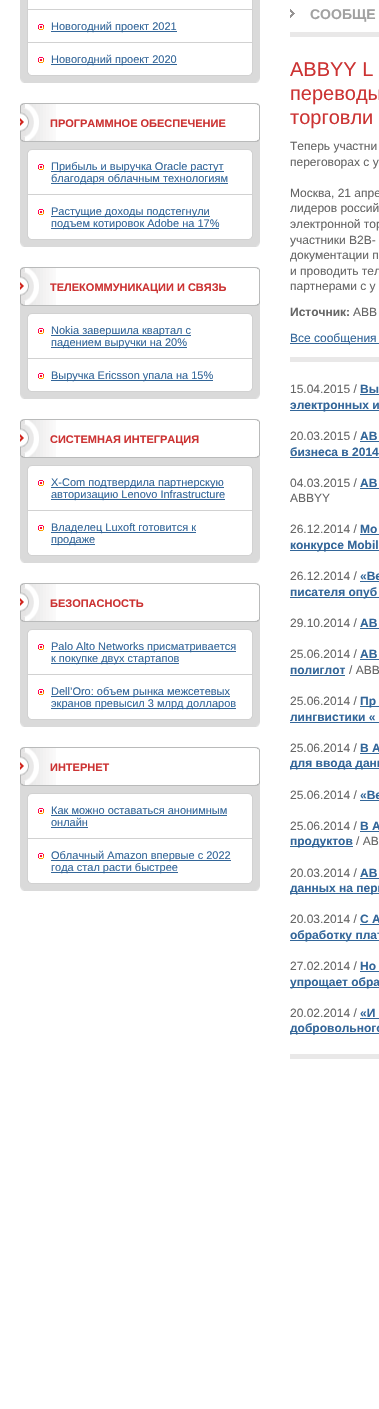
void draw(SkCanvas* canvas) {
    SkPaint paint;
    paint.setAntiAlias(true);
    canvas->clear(0xFFFFFFFF);
    paint.setColor(0xFFDADADA);
    canvas->drawRect(SkRect::MakeXYWH(20, 0, 240, 83), paint);
    paint.setColor(0xFFFFFFFF);
    canvas->drawRect(SkRect::MakeXYWH(27.5f, -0.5f, 225, 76), paint);
    paint.setStyle(SkPaint::kStroke_Style);
    paint.setStrokeWidth(1);
    paint.setColor(0xFFD1D1D1);
    canvas->drawRect(SkRect::MakeXYWH(27.5f, -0.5f, 225, 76), paint);
    canvas->drawImageRect(SkImages::DeferredFromEncodedData(SkData::MakeFromFileName("img1.png")), SkRect::MakeXYWH(38, 24, 6, 6), SkSamplingOptions());
    paint.setStyle(SkPaint::kFill_Style);
    canvas->drawRect(SkRect::MakeXYWH(28, 9, 224, 1), paint);
    paint.setColor(0xFF336699);
    canvas->drawRect(SkRect::MakeXYWH(51, 31, 126, 1), paint);
    SkFont font1(fontMgr->matchFamilyStyle("Liberation Sans", SkFontStyle::Normal()), 11);
    font1.setSubpixel(true);
    canvas->drawString("Новогодний проект 2021", 51, 30, font1, paint);
    canvas->drawImageRect(SkImages::DeferredFromEncodedData(SkData::MakeFromFileName("img1.png")), SkRect::MakeXYWH(38, 57, 6, 6), SkSamplingOptions());
    paint.setColor(0xFFD1D1D1);
    canvas->drawRect(SkRect::MakeXYWH(28, 42, 224, 1), paint);
    paint.setColor(0xFF336699);
    canvas->drawRect(SkRect::MakeXYWH(51, 64, 126, 1), paint);
    canvas->drawString("Новогодний проект 2020", 51, 63, font1, paint);
    canvas->drawImageRect(SkImages::DeferredFromEncodedData(SkData::MakeFromFileName("img2.png")), SkRect::MakeXYWH(27, 72, 4, 4), SkSamplingOptions());
    canvas->drawImageRect(SkImages::DeferredFromEncodedData(SkData::MakeFromFileName("img3.png")), SkRect::MakeXYWH(249, 72, 4, 4), SkSamplingOptions());
    canvas->drawImageRect(SkImages::DeferredFromEncodedData(SkData::MakeFromFileName("img4.png")), SkRect::MakeXYWH(20, 78, 4, 5), SkSamplingOptions());
    canvas->drawImageRect(SkImages::DeferredFromEncodedData(SkData::MakeFromFileName("img5.png")), SkRect::MakeXYWH(256, 78, 4, 5), SkSamplingOptions());
    canvas->drawImageRect(SkImages::DeferredFromEncodedData(SkData::MakeFromFileName("img6.png")), SkRect::MakeXYWH(39, 104, 17, 37), SkSamplingOptions());
    paint.setStyle(SkPaint::kStroke_Style);
    paint.setColor(0xFFB9BABA);
    canvas->drawRect(SkRect::MakeXYWH(20.5f, 103.5f, 239, 38), paint);
    canvas->drawImageRect(SkImages::DeferredFromEncodedData(SkData::MakeFromFileName("img9.png")), SkRect::MakeXYWH(20, 104, 19, 37), SkSamplingOptions());
    canvas->drawImageRect(SkImages::DeferredFromEncodedData(SkData::MakeFromFileName("img7.png")), SkRect::MakeXYWH(20, 103, 5, 5), SkSamplingOptions());
    canvas->drawImageRect(SkImages::DeferredFromEncodedData(SkData::MakeFromFileName("img8.png")), SkRect::MakeXYWH(255, 103, 5, 5), SkSamplingOptions());
    SkFont font2(fontMgr->matchFamilyStyle("Liberation Sans", SkFontStyle::Bold()), 11);
    font2.setSubpixel(true);
    paint.setStyle(SkPaint::kFill_Style);
    paint.setColor(0xFFCC3333);
    canvas->drawString("ПРОГРАММНОЕ ОБЕСПЕЧЕНИЕ", 50, 127, font2, paint);
    canvas->drawImageRect(SkImages::DeferredFromEncodedData(SkData::MakeFromFileName("img10.png")), SkRect::MakeXYWH(20, 137, 5, 5), SkSamplingOptions());
    canvas->drawImageRect(SkImages::DeferredFromEncodedData(SkData::MakeFromFileName("img11.png")), SkRect::MakeXYWH(255, 137, 5, 5), SkSamplingOptions());
    paint.setColor(0xFFDADADA);
    canvas->drawRect(SkRect::MakeXYWH(20, 142, 240, 105), paint);
    paint.setColor(0xFFFFFFFF);
    canvas->drawRect(SkRect::MakeXYWH(27.5f, 149.5f, 225, 90), paint);
    paint.setStyle(SkPaint::kStroke_Style);
    paint.setColor(0xFFD1D1D1);
    canvas->drawRect(SkRect::MakeXYWH(27.5f, 149.5f, 225, 90), paint);
    canvas->drawImageRect(SkImages::DeferredFromEncodedData(SkData::MakeFromFileName("img12.png")), SkRect::MakeXYWH(27, 149, 5, 4), SkSamplingOptions());
    canvas->drawImageRect(SkImages::DeferredFromEncodedData(SkData::MakeFromFileName("img13.png")), SkRect::MakeXYWH(248, 149, 5, 4), SkSamplingOptions());
    canvas->drawImageRect(SkImages::DeferredFromEncodedData(SkData::MakeFromFileName("img1.png")), SkRect::MakeXYWH(38, 164, 6, 6), SkSamplingOptions());
    paint.setStyle(SkPaint::kFill_Style);
    paint.setColor(0xFF336699);
    canvas->drawRect(SkRect::MakeXYWH(51, 171, 173, 1), paint);
    canvas->drawString("Прибыль и выручка Oracle растут", 51, 170, font1, paint);
    canvas->drawRect(SkRect::MakeXYWH(51, 183, 177, 1), paint);
    canvas->drawString("благодаря облачным технологиям", 51, 182, font1, paint);
    canvas->drawImageRect(SkImages::DeferredFromEncodedData(SkData::MakeFromFileName("img1.png")), SkRect::MakeXYWH(38, 209, 6, 6), SkSamplingOptions());
    paint.setColor(0xFFD1D1D1);
    canvas->drawRect(SkRect::MakeXYWH(28, 194, 224, 1), paint);
    paint.setColor(0xFF336699);
    canvas->drawRect(SkRect::MakeXYWH(51, 216, 159, 1), paint);
    canvas->drawString("Растущие доходы подстегнули", 51, 215, font1, paint);
    canvas->drawRect(SkRect::MakeXYWH(51, 228, 168, 1), paint);
    canvas->drawString("подъем котировок Adobe на 17%", 51, 227, font1, paint);
    canvas->drawImageRect(SkImages::DeferredFromEncodedData(SkData::MakeFromFileName("img2.png")), SkRect::MakeXYWH(27, 236, 4, 4), SkSamplingOptions());
    canvas->drawImageRect(SkImages::DeferredFromEncodedData(SkData::MakeFromFileName("img3.png")), SkRect::MakeXYWH(249, 236, 4, 4), SkSamplingOptions());
    canvas->drawImageRect(SkImages::DeferredFromEncodedData(SkData::MakeFromFileName("img4.png")), SkRect::MakeXYWH(20, 242, 4, 5), SkSamplingOptions());
    canvas->drawImageRect(SkImages::DeferredFromEncodedData(SkData::MakeFromFileName("img5.png")), SkRect::MakeXYWH(256, 242, 4, 5), SkSamplingOptions());
    canvas->drawImageRect(SkImages::DeferredFromEncodedData(SkData::MakeFromFileName("img6.png")), SkRect::MakeXYWH(39, 268, 17, 37), SkSamplingOptions());
    paint.setStyle(SkPaint::kStroke_Style);
    paint.setColor(0xFFB9BABA);
    canvas->drawRect(SkRect::MakeXYWH(20.5f, 267.5f, 239, 38), paint);
    canvas->drawImageRect(SkImages::DeferredFromEncodedData(SkData::MakeFromFileName("img9.png")), SkRect::MakeXYWH(20, 268, 19, 37), SkSamplingOptions());
    canvas->drawImageRect(SkImages::DeferredFromEncodedData(SkData::MakeFromFileName("img7.png")), SkRect::MakeXYWH(20, 267, 5, 5), SkSamplingOptions());
    canvas->drawImageRect(SkImages::DeferredFromEncodedData(SkData::MakeFromFileName("img8.png")), SkRect::MakeXYWH(255, 267, 5, 5), SkSamplingOptions());
    paint.setStyle(SkPaint::kFill_Style);
    paint.setColor(0xFFCC3333);
    canvas->drawString("ТЕЛЕКОММУНИКАЦИИ И СВЯЗЬ", 50, 291, font2, paint);
    canvas->drawImageRect(SkImages::DeferredFromEncodedData(SkData::MakeFromFileName("img10.png")), SkRect::MakeXYWH(20, 301, 5, 5), SkSamplingOptions());
    canvas->drawImageRect(SkImages::DeferredFromEncodedData(SkData::MakeFromFileName("img11.png")), SkRect::MakeXYWH(255, 301, 5, 5), SkSamplingOptions());
    paint.setColor(0xFFDADADA);
    canvas->drawRect(SkRect::MakeXYWH(20, 306, 240, 93), paint);
    paint.setColor(0xFFFFFFFF);
    canvas->drawRect(SkRect::MakeXYWH(27.5f, 313.5f, 225, 78), paint);
    paint.setStyle(SkPaint::kStroke_Style);
    paint.setColor(0xFFD1D1D1);
    canvas->drawRect(SkRect::MakeXYWH(27.5f, 313.5f, 225, 78), paint);
    canvas->drawImageRect(SkImages::DeferredFromEncodedData(SkData::MakeFromFileName("img12.png")), SkRect::MakeXYWH(27, 313, 5, 4), SkSamplingOptions());
    canvas->drawImageRect(SkImages::DeferredFromEncodedData(SkData::MakeFromFileName("img13.png")), SkRect::MakeXYWH(248, 313, 5, 4), SkSamplingOptions());
    canvas->drawImageRect(SkImages::DeferredFromEncodedData(SkData::MakeFromFileName("img1.png")), SkRect::MakeXYWH(38, 328, 6, 6), SkSamplingOptions());
    paint.setStyle(SkPaint::kFill_Style);
    paint.setColor(0xFF336699);
    canvas->drawRect(SkRect::MakeXYWH(51, 335, 140, 1), paint);
    canvas->drawString("Nokia завершила квартал с", 51, 334, font1, paint);
    canvas->drawRect(SkRect::MakeXYWH(51, 347, 136, 1), paint);
    canvas->drawString("падением выручки на 20%", 51, 346, font1, paint);
    canvas->drawImageRect(SkImages::DeferredFromEncodedData(SkData::MakeFromFileName("img1.png")), SkRect::MakeXYWH(38, 373, 6, 6), SkSamplingOptions());
    paint.setColor(0xFFD1D1D1);
    canvas->drawRect(SkRect::MakeXYWH(28, 358, 224, 1), paint);
    paint.setColor(0xFF336699);
    canvas->drawRect(SkRect::MakeXYWH(51, 380, 162, 1), paint);
    canvas->drawString("Выручка Ericsson упала на 15%", 51, 379, font1, paint);
    canvas->drawImageRect(SkImages::DeferredFromEncodedData(SkData::MakeFromFileName("img2.png")), SkRect::MakeXYWH(27, 388, 4, 4), SkSamplingOptions());
    canvas->drawImageRect(SkImages::DeferredFromEncodedData(SkData::MakeFromFileName("img3.png")), SkRect::MakeXYWH(249, 388, 4, 4), SkSamplingOptions());
    canvas->drawImageRect(SkImages::DeferredFromEncodedData(SkData::MakeFromFileName("img4.png")), SkRect::MakeXYWH(20, 394, 4, 5), SkSamplingOptions());
    canvas->drawImageRect(SkImages::DeferredFromEncodedData(SkData::MakeFromFileName("img5.png")), SkRect::MakeXYWH(256, 394, 4, 5), SkSamplingOptions());
    canvas->drawImageRect(SkImages::DeferredFromEncodedData(SkData::MakeFromFileName("img6.png")), SkRect::MakeXYWH(39, 420, 17, 37), SkSamplingOptions());
    paint.setStyle(SkPaint::kStroke_Style);
    paint.setColor(0xFFB9BABA);
    canvas->drawRect(SkRect::MakeXYWH(20.5f, 419.5f, 239, 38), paint);
    canvas->drawImageRect(SkImages::DeferredFromEncodedData(SkData::MakeFromFileName("img9.png")), SkRect::MakeXYWH(20, 420, 19, 37), SkSamplingOptions());
    canvas->drawImageRect(SkImages::DeferredFromEncodedData(SkData::MakeFromFileName("img7.png")), SkRect::MakeXYWH(20, 419, 5, 5), SkSamplingOptions());
    canvas->drawImageRect(SkImages::DeferredFromEncodedData(SkData::MakeFromFileName("img8.png")), SkRect::MakeXYWH(255, 419, 5, 5), SkSamplingOptions());
    paint.setStyle(SkPaint::kFill_Style);
    paint.setColor(0xFFCC3333);
    canvas->drawString("СИСТЕМНАЯ ИНТЕГРАЦИЯ", 50, 443, font2, paint);
    canvas->drawImageRect(SkImages::DeferredFromEncodedData(SkData::MakeFromFileName("img10.png")), SkRect::MakeXYWH(20, 453, 5, 5), SkSamplingOptions());
    canvas->drawImageRect(SkImages::DeferredFromEncodedData(SkData::MakeFromFileName("img11.png")), SkRect::MakeXYWH(255, 453, 5, 5), SkSamplingOptions());
    paint.setColor(0xFFDADADA);
    canvas->drawRect(SkRect::MakeXYWH(20, 458, 240, 105), paint);
    paint.setColor(0xFFFFFFFF);
    canvas->drawRect(SkRect::MakeXYWH(27.5f, 465.5f, 225, 90), paint);
    paint.setStyle(SkPaint::kStroke_Style);
    paint.setColor(0xFFD1D1D1);
    canvas->drawRect(SkRect::MakeXYWH(27.5f, 465.5f, 225, 90), paint);
    canvas->drawImageRect(SkImages::DeferredFromEncodedData(SkData::MakeFromFileName("img12.png")), SkRect::MakeXYWH(27, 465, 5, 4), SkSamplingOptions());
    canvas->drawImageRect(SkImages::DeferredFromEncodedData(SkData::MakeFromFileName("img13.png")), SkRect::MakeXYWH(248, 465, 5, 4), SkSamplingOptions());
    canvas->drawImageRect(SkImages::DeferredFromEncodedData(SkData::MakeFromFileName("img1.png")), SkRect::MakeXYWH(38, 480, 6, 6), SkSamplingOptions());
    paint.setStyle(SkPaint::kFill_Style);
    paint.setColor(0xFF336699);
    canvas->drawRect(SkRect::MakeXYWH(51, 487, 173, 1), paint);
    canvas->drawString("X-Com подтвердила партнерскую", 51, 486, font1, paint);
    canvas->drawRect(SkRect::MakeXYWH(51, 499, 174, 1), paint);
    canvas->drawString("авторизацию Lenovo Infrastructure", 51, 498, font1, paint);
    canvas->drawImageRect(SkImages::DeferredFromEncodedData(SkData::MakeFromFileName("img1.png")), SkRect::MakeXYWH(38, 525, 6, 6), SkSamplingOptions());
    paint.setColor(0xFFD1D1D1);
    canvas->drawRect(SkRect::MakeXYWH(28, 510, 224, 1), paint);
    paint.setColor(0xFF336699);
    canvas->drawRect(SkRect::MakeXYWH(51, 532, 145, 1), paint);
    canvas->drawString("Владелец Luxoft готовится к", 51, 531, font1, paint);
    canvas->drawRect(SkRect::MakeXYWH(51, 544, 44, 1), paint);
    canvas->drawString("продаже", 51, 543, font1, paint);
    canvas->drawImageRect(SkImages::DeferredFromEncodedData(SkData::MakeFromFileName("img2.png")), SkRect::MakeXYWH(27, 552, 4, 4), SkSamplingOptions());
    canvas->drawImageRect(SkImages::DeferredFromEncodedData(SkData::MakeFromFileName("img3.png")), SkRect::MakeXYWH(249, 552, 4, 4), SkSamplingOptions());
    canvas->drawImageRect(SkImages::DeferredFromEncodedData(SkData::MakeFromFileName("img4.png")), SkRect::MakeXYWH(20, 558, 4, 5), SkSamplingOptions());
    canvas->drawImageRect(SkImages::DeferredFromEncodedData(SkData::MakeFromFileName("img5.png")), SkRect::MakeXYWH(256, 558, 4, 5), SkSamplingOptions());
    canvas->drawImageRect(SkImages::DeferredFromEncodedData(SkData::MakeFromFileName("img6.png")), SkRect::MakeXYWH(39, 584, 17, 37), SkSamplingOptions());
    paint.setStyle(SkPaint::kStroke_Style);
    paint.setColor(0xFFB9BABA);
    canvas->drawRect(SkRect::MakeXYWH(20.5f, 583.5f, 239, 38), paint);
    canvas->drawImageRect(SkImages::DeferredFromEncodedData(SkData::MakeFromFileName("img9.png")), SkRect::MakeXYWH(20, 584, 19, 37), SkSamplingOptions());
    canvas->drawImageRect(SkImages::DeferredFromEncodedData(SkData::MakeFromFileName("img7.png")), SkRect::MakeXYWH(20, 583, 5, 5), SkSamplingOptions());
    canvas->drawImageRect(SkImages::DeferredFromEncodedData(SkData::MakeFromFileName("img8.png")), SkRect::MakeXYWH(255, 583, 5, 5), SkSamplingOptions());
    paint.setStyle(SkPaint::kFill_Style);
    paint.setColor(0xFFCC3333);
    canvas->drawString("БЕЗОПАСНОСТЬ", 50, 607, font2, paint);
    canvas->drawImageRect(SkImages::DeferredFromEncodedData(SkData::MakeFromFileName("img10.png")), SkRect::MakeXYWH(20, 617, 5, 5), SkSamplingOptions());
    canvas->drawImageRect(SkImages::DeferredFromEncodedData(SkData::MakeFromFileName("img11.png")), SkRect::MakeXYWH(255, 617, 5, 5), SkSamplingOptions());
    paint.setColor(0xFFDADADA);
    canvas->drawRect(SkRect::MakeXYWH(20, 622, 240, 105), paint);
    paint.setColor(0xFFFFFFFF);
    canvas->drawRect(SkRect::MakeXYWH(27.5f, 629.5f, 225, 90), paint);
    paint.setStyle(SkPaint::kStroke_Style);
    paint.setColor(0xFFD1D1D1);
    canvas->drawRect(SkRect::MakeXYWH(27.5f, 629.5f, 225, 90), paint);
    canvas->drawImageRect(SkImages::DeferredFromEncodedData(SkData::MakeFromFileName("img12.png")), SkRect::MakeXYWH(27, 629, 5, 4), SkSamplingOptions());
    canvas->drawImageRect(SkImages::DeferredFromEncodedData(SkData::MakeFromFileName("img13.png")), SkRect::MakeXYWH(248, 629, 5, 4), SkSamplingOptions());
    canvas->drawImageRect(SkImages::DeferredFromEncodedData(SkData::MakeFromFileName("img1.png")), SkRect::MakeXYWH(38, 644, 6, 6), SkSamplingOptions());
    paint.setStyle(SkPaint::kFill_Style);
    paint.setColor(0xFF336699);
    canvas->drawRect(SkRect::MakeXYWH(51, 651, 185, 1), paint);
    canvas->drawString("Palo Alto Networks присматривается", 51, 650, font1, paint);
    canvas->drawRect(SkRect::MakeXYWH(51, 663, 128, 1), paint);
    canvas->drawString("к покупке двух стартапов", 51, 662, font1, paint);
    canvas->drawImageRect(SkImages::DeferredFromEncodedData(SkData::MakeFromFileName("img1.png")), SkRect::MakeXYWH(38, 689, 6, 6), SkSamplingOptions());
    paint.setColor(0xFFD1D1D1);
    canvas->drawRect(SkRect::MakeXYWH(28, 674, 224, 1), paint);
    paint.setColor(0xFF336699);
    canvas->drawRect(SkRect::MakeXYWH(51, 696, 179, 1), paint);
    canvas->drawString("Dell’Oro: объем рынка межсетевых", 51, 695, font1, paint);
    canvas->drawRect(SkRect::MakeXYWH(51, 708, 185, 1), paint);
    canvas->drawString("экранов превысил 3 млрд долларов", 51, 707, font1, paint);
    canvas->drawImageRect(SkImages::DeferredFromEncodedData(SkData::MakeFromFileName("img2.png")), SkRect::MakeXYWH(27, 716, 4, 4), SkSamplingOptions());
    canvas->drawImageRect(SkImages::DeferredFromEncodedData(SkData::MakeFromFileName("img3.png")), SkRect::MakeXYWH(249, 716, 4, 4), SkSamplingOptions());
    canvas->drawImageRect(SkImages::DeferredFromEncodedData(SkData::MakeFromFileName("img4.png")), SkRect::MakeXYWH(20, 722, 4, 5), SkSamplingOptions());
    canvas->drawImageRect(SkImages::DeferredFromEncodedData(SkData::MakeFromFileName("img5.png")), SkRect::MakeXYWH(256, 722, 4, 5), SkSamplingOptions());
    canvas->drawImageRect(SkImages::DeferredFromEncodedData(SkData::MakeFromFileName("img6.png")), SkRect::MakeXYWH(39, 748, 17, 37), SkSamplingOptions());
    paint.setStyle(SkPaint::kStroke_Style);
    paint.setColor(0xFFB9BABA);
    canvas->drawRect(SkRect::MakeXYWH(20.5f, 747.5f, 239, 38), paint);
    canvas->drawImageRect(SkImages::DeferredFromEncodedData(SkData::MakeFromFileName("img9.png")), SkRect::MakeXYWH(20, 748, 19, 37), SkSamplingOptions());
    canvas->drawImageRect(SkImages::DeferredFromEncodedData(SkData::MakeFromFileName("img7.png")), SkRect::MakeXYWH(20, 747, 5, 5), SkSamplingOptions());
    canvas->drawImageRect(SkImages::DeferredFromEncodedData(SkData::MakeFromFileName("img8.png")), SkRect::MakeXYWH(255, 747, 5, 5), SkSamplingOptions());
    paint.setStyle(SkPaint::kFill_Style);
    paint.setColor(0xFFCC3333);
    canvas->drawString("ИНТЕРНЕТ", 50, 771, font2, paint);
    canvas->drawImageRect(SkImages::DeferredFromEncodedData(SkData::MakeFromFileName("img10.png")), SkRect::MakeXYWH(20, 781, 5, 5), SkSamplingOptions());
    canvas->drawImageRect(SkImages::DeferredFromEncodedData(SkData::MakeFromFileName("img11.png")), SkRect::MakeXYWH(255, 781, 5, 5), SkSamplingOptions());
    paint.setColor(0xFFDADADA);
    canvas->drawRect(SkRect::MakeXYWH(20, 786, 240, 105), paint);
    paint.setColor(0xFFFFFFFF);
    canvas->drawRect(SkRect::MakeXYWH(27.5f, 793.5f, 225, 90), paint);
    paint.setStyle(SkPaint::kStroke_Style);
    paint.setColor(0xFFD1D1D1);
    canvas->drawRect(SkRect::MakeXYWH(27.5f, 793.5f, 225, 90), paint);
    canvas->drawImageRect(SkImages::DeferredFromEncodedData(SkData::MakeFromFileName("img12.png")), SkRect::MakeXYWH(27, 793, 5, 4), SkSamplingOptions());
    canvas->drawImageRect(SkImages::DeferredFromEncodedData(SkData::MakeFromFileName("img13.png")), SkRect::MakeXYWH(248, 793, 5, 4), SkSamplingOptions());
    canvas->drawImageRect(SkImages::DeferredFromEncodedData(SkData::MakeFromFileName("img1.png")), SkRect::MakeXYWH(38, 808, 6, 6), SkSamplingOptions());
    paint.setStyle(SkPaint::kFill_Style);
    paint.setColor(0xFF336699);
    canvas->drawString("Как можно оставаться анонимным", 51, 814, font1, paint);
    canvas->drawRect(SkRect::MakeXYWH(51, 815, 176, 1), paint);
    canvas->drawString("онлайн", 51, 826, font1, paint);
    canvas->drawRect(SkRect::MakeXYWH(51, 827, 37, 1), paint);
    canvas->drawImageRect(SkImages::DeferredFromEncodedData(SkData::MakeFromFileName("img1.png")), SkRect::MakeXYWH(38, 853, 6, 6), SkSamplingOptions());
    paint.setColor(0xFFD1D1D1);
    canvas->drawRect(SkRect::MakeXYWH(28, 838, 224, 1), paint);
    paint.setColor(0xFF336699);
    canvas->drawRect(SkRect::MakeXYWH(51, 860, 180, 1), paint);
    canvas->drawString("Облачный Amazon впервые с 2022", 51, 859, font1, paint);
    canvas->drawRect(SkRect::MakeXYWH(51, 872, 127, 1), paint);
    canvas->drawString("года стал расти быстрее", 51, 871, font1, paint);
    canvas->drawImageRect(SkImages::DeferredFromEncodedData(SkData::MakeFromFileName("img2.png")), SkRect::MakeXYWH(27, 880, 4, 4), SkSamplingOptions());
    canvas->drawImageRect(SkImages::DeferredFromEncodedData(SkData::MakeFromFileName("img3.png")), SkRect::MakeXYWH(249, 880, 4, 4), SkSamplingOptions());
    canvas->drawImageRect(SkImages::DeferredFromEncodedData(SkData::MakeFromFileName("img4.png")), SkRect::MakeXYWH(20, 886, 4, 5), SkSamplingOptions());
    canvas->drawImageRect(SkImages::DeferredFromEncodedData(SkData::MakeFromFileName("img5.png")), SkRect::MakeXYWH(256, 886, 4, 5), SkSamplingOptions());
    canvas->drawImageRect(SkImages::DeferredFromEncodedData(SkData::MakeFromFileName("img14.png")), SkRect::MakeXYWH(290, 9, 5, 9), SkSamplingOptions());
    paint.setColor(0xFFE9E8E8);
    canvas->drawRect(SkRect::MakeXYWH(290, 32, 89, 5), paint);
    SkFont font3(fontMgr->matchFamilyStyle("Liberation Sans", SkFontStyle::Bold()), 14);
    font3.setSubpixel(true);
    paint.setColor(0xFFA1A1A1);
    canvas->drawString("СООБЩЕ", 310, 19, font3, paint);
    paint.setColor(0xFFE9E8E8);
    canvas->drawRect(SkRect::MakeXYWH(290, 357, 89, 5), paint);
    SkFont font4(fontMgr->matchFamilyStyle("Liberation Sans", SkFontStyle::Normal()), 20);
    font4.setSubpixel(true);
    paint.setColor(0xFFCC3333);
    canvas->drawString("ABBYY L", 290, 76, font4, paint);
    canvas->drawString("переводы", 290, 100, font4, paint);
    canvas->drawString("торговли", 290, 124, font4, paint);
    SkFont font5(fontMgr->matchFamilyStyle("Liberation Sans", SkFontStyle::Normal()), 12);
    font5.setSubpixel(true);
    paint.setColor(0xFF666666);
    canvas->drawString("Теперь участни", 290, 150, font5, paint);
    canvas->drawString("переговорах с у", 290, 166, font5, paint);
    canvas->drawString("Москва, 21 апре", 290, 197, font5, paint);
    canvas->drawString("лидеров россий", 290, 212, font5, paint);
    canvas->drawString("электронной тор", 290, 228, font5, paint);
    canvas->drawString("участники B2B-", 290, 244, font5, paint);
    canvas->drawString("документации п", 290, 259, font5, paint);
    canvas->drawString("и проводить тел", 290, 275, font5, paint);
    canvas->drawString("партнерами с у", 290, 290, font5, paint);
    SkFont font6(fontMgr->matchFamilyStyle("Liberation Sans", SkFontStyle::Bold()), 12);
    font6.setSubpixel(true);
    canvas->drawString("Источник:", 290, 316, font6, paint);
    canvas->drawString("ABB", 353, 316, font5, paint);
    paint.setColor(0xFF336699);
    canvas->drawRect(SkRect::MakeXYWH(290, 343, 89, 1), paint);
    canvas->drawString("Все сообщения", 290, 342, font5, paint);
    paint.setColor(0xFFE9E8E8);
    canvas->drawRect(SkRect::MakeXYWH(290, 1054, 89, 5), paint);
    paint.setColor(0xFF666666);
    canvas->drawString("15.04.2015 /", 290, 393, font5, paint);
    paint.setColor(0xFF336699);
    canvas->drawString("Вы", 360, 393, font6, paint);
    canvas->drawRect(SkRect::MakeXYWH(360, 394, 19, 1), paint);
    canvas->drawRect(SkRect::MakeXYWH(290, 410, 89, 1), paint);
    canvas->drawString("электронных и", 290, 409, font6, paint);
    paint.setColor(0xFF666666);
    canvas->drawString("20.03.2015 /", 290, 440, font5, paint);
    paint.setColor(0xFF336699);
    canvas->drawString("AB", 360, 440, font6, paint);
    canvas->drawRect(SkRect::MakeXYWH(360, 441, 19, 1), paint);
    canvas->drawString("бизнеса в 2014", 290, 456, font6, paint);
    canvas->drawRect(SkRect::MakeXYWH(290, 457, 89, 1), paint);
    paint.setColor(0xFF666666);
    canvas->drawString("04.03.2015 /", 290, 487, font5, paint);
    paint.setColor(0xFF336699);
    canvas->drawString("AB", 360, 487, font6, paint);
    canvas->drawRect(SkRect::MakeXYWH(360, 488, 19, 1), paint);
    paint.setColor(0xFF666666);
    canvas->drawString("ABBYY", 290, 502, font5, paint);
    canvas->drawString("26.12.2014 /", 290, 533, font5, paint);
    paint.setColor(0xFF336699);
    canvas->drawString("Мо", 360, 533, font6, paint);
    canvas->drawRect(SkRect::MakeXYWH(360, 534, 19, 1), paint);
    canvas->drawRect(SkRect::MakeXYWH(290, 550, 89, 1), paint);
    canvas->drawString("конкурсе Mobil", 290, 549, font6, paint);
    paint.setColor(0xFF666666);
    canvas->drawString("26.12.2014 /", 290, 580, font5, paint);
    paint.setColor(0xFF336699);
    canvas->drawString("«Ве", 360, 580, font6, paint);
    canvas->drawRect(SkRect::MakeXYWH(360, 581, 19, 1), paint);
    canvas->drawRect(SkRect::MakeXYWH(290, 597, 89, 1), paint);
    canvas->drawString("писателя опуб", 290, 596, font6, paint);
    paint.setColor(0xFF666666);
    canvas->drawString("29.10.2014 /", 290, 627, font5, paint);
    paint.setColor(0xFF336699);
    canvas->drawString("AB", 360, 627, font6, paint);
    canvas->drawRect(SkRect::MakeXYWH(360, 628, 19, 1), paint);
    paint.setColor(0xFF666666);
    canvas->drawString("25.06.2014 /", 290, 658, font5, paint);
    paint.setColor(0xFF336699);
    canvas->drawString("AB", 360, 658, font6, paint);
    canvas->drawRect(SkRect::MakeXYWH(360, 659, 19, 1), paint);
    canvas->drawString("полиглот", 290, 674, font6, paint);
    canvas->drawRect(SkRect::MakeXYWH(290, 675, 55, 1), paint);
    paint.setColor(0xFF666666);
    canvas->drawString("/ ABB", 349, 674, font5, paint);
    canvas->drawString("25.06.2014 /", 290, 705, font5, paint);
    paint.setColor(0xFF336699);
    canvas->drawRect(SkRect::MakeXYWH(360, 706, 19, 1), paint);
    canvas->drawString("Пр", 360, 705, font6, paint);
    canvas->drawString("лингвистики «", 290, 721, font6, paint);
    canvas->drawRect(SkRect::MakeXYWH(290, 722, 89, 1), paint);
    paint.setColor(0xFF666666);
    canvas->drawString("25.06.2014 /", 290, 752, font5, paint);
    paint.setColor(0xFF336699);
    canvas->drawString("В A", 360, 752, font6, paint);
    canvas->drawRect(SkRect::MakeXYWH(360, 753, 19, 1), paint);
    canvas->drawRect(SkRect::MakeXYWH(290, 768, 89, 1), paint);
    canvas->drawString("для ввода данн", 290, 767, font6, paint);
    paint.setColor(0xFF666666);
    canvas->drawString("25.06.2014 /", 290, 799, font5, paint);
    paint.setColor(0xFF336699);
    canvas->drawString("«Ве", 360, 799, font6, paint);
    canvas->drawRect(SkRect::MakeXYWH(360, 800, 19, 1), paint);
    paint.setColor(0xFF666666);
    canvas->drawString("25.06.2014 /", 290, 830, font5, paint);
    paint.setColor(0xFF336699);
    canvas->drawString("В A", 360, 830, font6, paint);
    canvas->drawRect(SkRect::MakeXYWH(360, 831, 19, 1), paint);
    canvas->drawRect(SkRect::MakeXYWH(290, 846, 63, 1), paint);
    canvas->drawString("продуктов", 290, 845, font6, paint);
    paint.setColor(0xFF666666);
    canvas->drawString("/ AB", 356, 845, font5, paint);
    canvas->drawString("20.03.2014 /", 290, 877, font5, paint);
    paint.setColor(0xFF336699);
    canvas->drawString("AB", 360, 877, font6, paint);
    canvas->drawRect(SkRect::MakeXYWH(360, 878, 19, 1), paint);
    canvas->drawRect(SkRect::MakeXYWH(290, 893, 89, 1), paint);
    canvas->drawString("данных на перв", 290, 892, font6, paint);
    paint.setColor(0xFF666666);
    canvas->drawString("20.03.2014 /", 290, 923, font5, paint);
    paint.setColor(0xFF336699);
    canvas->drawString("С A", 360, 923, font6, paint);
    canvas->drawRect(SkRect::MakeXYWH(360, 924, 19, 1), paint);
    canvas->drawRect(SkRect::MakeXYWH(290, 940, 89, 1), paint);
    canvas->drawString("обработку плат", 290, 939, font6, paint);
    paint.setColor(0xFF666666);
    canvas->drawString("27.02.2014 /", 290, 970, font5, paint);
    paint.setColor(0xFF336699);
    canvas->drawString("Но", 360, 970, font6, paint);
    canvas->drawRect(SkRect::MakeXYWH(360, 971, 19, 1), paint);
    canvas->drawRect(SkRect::MakeXYWH(290, 987, 89, 1), paint);
    canvas->drawString("упрощает обра", 290, 986, font6, paint);
    paint.setColor(0xFF666666);
    canvas->drawString("20.02.2014 /", 290, 1017, font5, paint);
    paint.setColor(0xFF336699);
    canvas->drawString("«И", 360, 1017, font6, paint);
    canvas->drawRect(SkRect::MakeXYWH(360, 1018, 19, 1), paint);
    canvas->drawRect(SkRect::MakeXYWH(290, 1033, 89, 1), paint);
    canvas->drawString("добровольного", 290, 1032, font6, paint);
}
